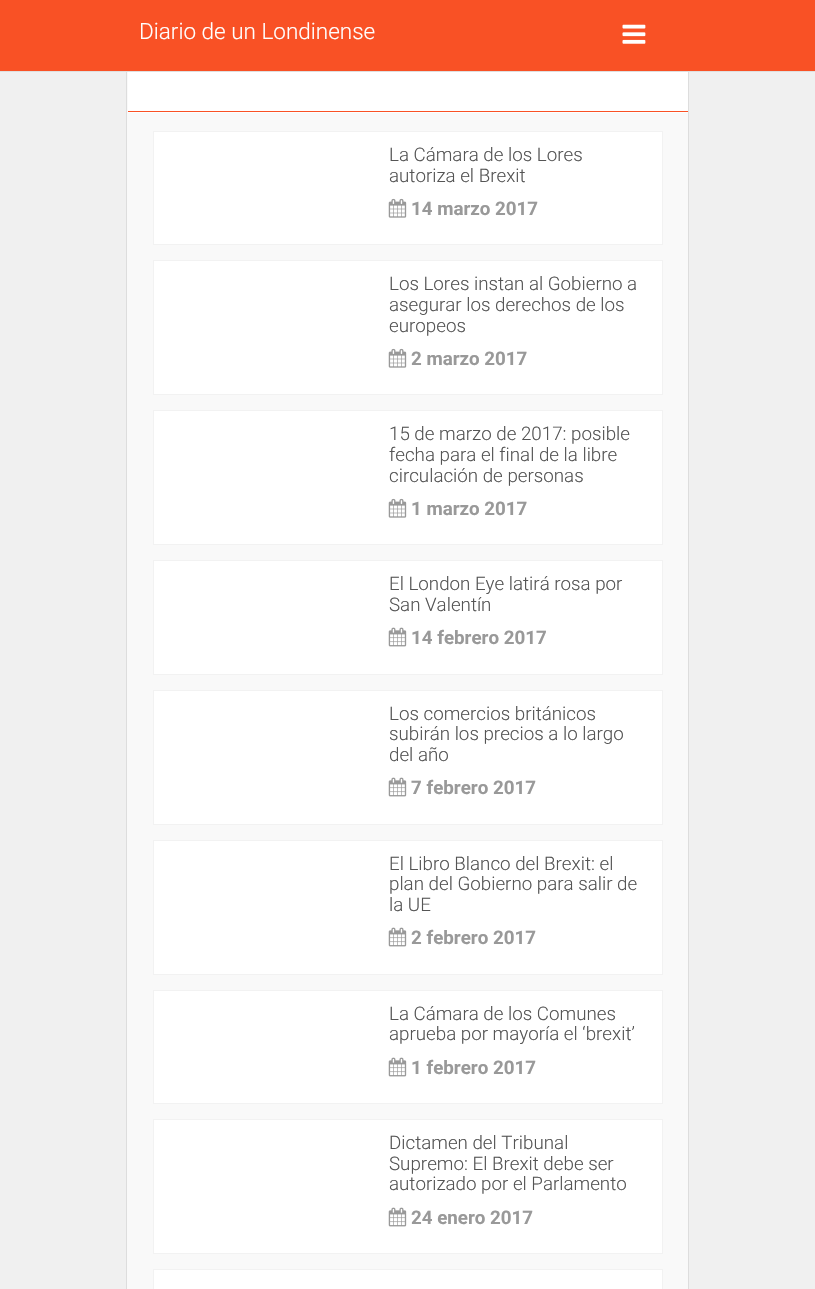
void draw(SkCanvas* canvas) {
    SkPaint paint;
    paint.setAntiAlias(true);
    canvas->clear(0xFFF0F0F0);
    paint.setColor(0xFFF9F9F9);
    canvas->drawRect(SkRect::MakeXYWH(127, 72, 561, 1217), paint);
    paint.setStyle(SkPaint::kStroke_Style);
    paint.setStrokeWidth(1);
    paint.setColor(0xFFDDDDDD);
    canvas->drawRect(SkRect::MakeXYWH(126.5f, 33.5f, 562, 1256), paint);
    paint.setStyle(SkPaint::kFill_Style);
    paint.setColor(0xFFF95125);
    canvas->drawRect(SkRect::MakeXYWH(0, 0, 815, 71), paint);
    paint.setColor(0xFFDFDFDF);
    canvas->drawRect(SkRect::MakeXYWH(0, 71, 815, 1), paint);
    SkFont font1(fontMgr->matchFamilyStyle("Roboto", SkFontStyle(300, SkFontStyle::kNormal_Width, SkFontStyle::kUpright_Slant)), 22.5f);
    font1.setSubpixel(true);
    paint.setColor(0xFFFFFFFF);
    canvas->drawString("Diario de un Londinense", 139, 39, font1, paint);
    canvas->drawImageRect(SkImages::DeferredFromEncodedData(SkData::MakeFromFileName("img1.png")), SkRect::MakeXYWH(622, 24, 24, 20), SkSamplingOptions());
    canvas->drawRect(SkRect::MakeXYWH(128, 72, 560, 41), paint);
    paint.setColor(0xFFF95125);
    canvas->drawRect(SkRect::MakeXYWH(128, 111, 560, 1), paint);
    paint.setColor(0xFFFFFFFF);
    canvas->drawRect(SkRect::MakeXYWH(153.5f, 131.5f, 509, 113), paint);
    paint.setStyle(SkPaint::kStroke_Style);
    paint.setColor(0xFFF2F2F2);
    canvas->drawRect(SkRect::MakeXYWH(153.5f, 131.5f, 509, 113), paint);
    SkFont font2(fontMgr->matchFamilyStyle("Roboto", SkFontStyle(300, SkFontStyle::kNormal_Width, SkFontStyle::kUpright_Slant)), 18.75f);
    font2.setSubpixel(true);
    paint.setStyle(SkPaint::kFill_Style);
    paint.setColor(0xFF555555);
    canvas->drawString("La Cámara de los Lores", 389, 161, font2, paint);
    canvas->drawString("autoriza el Brexit", 389, 182, font2, paint);
    canvas->drawImageRect(SkImages::DeferredFromEncodedData(SkData::MakeFromFileName("img2.png")), SkRect::MakeXYWH(388, 198, 19, 20), SkSamplingOptions());
    SkFont font3(fontMgr->matchFamilyStyle("Roboto", SkFontStyle::Bold()), 18.75f);
    font3.setSubpixel(true);
    paint.setColor(0xFF999999);
    canvas->drawString("14 marzo 2017", 411, 215, font3, paint);
    paint.setColor(0xFFFFFFFF);
    canvas->drawRect(SkRect::MakeXYWH(153.5f, 260.5f, 509, 134), paint);
    paint.setStyle(SkPaint::kStroke_Style);
    paint.setColor(0xFFF2F2F2);
    canvas->drawRect(SkRect::MakeXYWH(153.5f, 260.5f, 509, 134), paint);
    paint.setStyle(SkPaint::kFill_Style);
    paint.setColor(0xFF555555);
    canvas->drawString("Los Lores instan al Gobierno a", 389, 290, font2, paint);
    canvas->drawString("asegurar los derechos de los", 389, 311, font2, paint);
    canvas->drawString("europeos", 389, 332, font2, paint);
    canvas->drawImageRect(SkImages::DeferredFromEncodedData(SkData::MakeFromFileName("img2.png")), SkRect::MakeXYWH(388, 348, 19, 20), SkSamplingOptions());
    paint.setColor(0xFF999999);
    canvas->drawString("2 marzo 2017", 411, 365, font3, paint);
    paint.setColor(0xFFFFFFFF);
    canvas->drawRect(SkRect::MakeXYWH(153.5f, 410.5f, 509, 134), paint);
    paint.setStyle(SkPaint::kStroke_Style);
    paint.setColor(0xFFF2F2F2);
    canvas->drawRect(SkRect::MakeXYWH(153.5f, 410.5f, 509, 134), paint);
    paint.setStyle(SkPaint::kFill_Style);
    paint.setColor(0xFF555555);
    canvas->drawString("15 de marzo de 2017: posible", 389, 440, font2, paint);
    canvas->drawString("fecha para el final de la libre", 389, 461, font2, paint);
    canvas->drawString("circulación de personas", 389, 482, font2, paint);
    canvas->drawImageRect(SkImages::DeferredFromEncodedData(SkData::MakeFromFileName("img2.png")), SkRect::MakeXYWH(388, 498, 19, 20), SkSamplingOptions());
    paint.setColor(0xFF999999);
    canvas->drawString("1 marzo 2017", 411, 515, font3, paint);
    paint.setColor(0xFFFFFFFF);
    canvas->drawRect(SkRect::MakeXYWH(153.5f, 560.5f, 509, 114), paint);
    paint.setStyle(SkPaint::kStroke_Style);
    paint.setColor(0xFFF2F2F2);
    canvas->drawRect(SkRect::MakeXYWH(153.5f, 560.5f, 509, 114), paint);
    paint.setStyle(SkPaint::kFill_Style);
    paint.setColor(0xFF555555);
    canvas->drawString("El London Eye latirá rosa por", 389, 590, font2, paint);
    canvas->drawString("San Valentín", 389, 611, font2, paint);
    canvas->drawImageRect(SkImages::DeferredFromEncodedData(SkData::MakeFromFileName("img3.png")), SkRect::MakeXYWH(388, 627, 19, 20), SkSamplingOptions());
    paint.setColor(0xFF999999);
    canvas->drawString("14 febrero 2017", 411, 644, font3, paint);
    paint.setColor(0xFFFFFFFF);
    canvas->drawRect(SkRect::MakeXYWH(153.5f, 690.5f, 509, 134), paint);
    paint.setStyle(SkPaint::kStroke_Style);
    paint.setColor(0xFFF2F2F2);
    canvas->drawRect(SkRect::MakeXYWH(153.5f, 690.5f, 509, 134), paint);
    paint.setStyle(SkPaint::kFill_Style);
    paint.setColor(0xFF555555);
    canvas->drawString("Los comercios británicos", 389, 720, font2, paint);
    canvas->drawString("subirán los precios a lo largo", 389, 740, font2, paint);
    canvas->drawString("del año", 389, 761, font2, paint);
    canvas->drawImageRect(SkImages::DeferredFromEncodedData(SkData::MakeFromFileName("img3.png")), SkRect::MakeXYWH(388, 777, 19, 20), SkSamplingOptions());
    paint.setColor(0xFF999999);
    canvas->drawString("7 febrero 2017", 411, 794, font3, paint);
    paint.setColor(0xFFFFFFFF);
    canvas->drawRect(SkRect::MakeXYWH(153.5f, 840.5f, 509, 134), paint);
    paint.setStyle(SkPaint::kStroke_Style);
    paint.setColor(0xFFF2F2F2);
    canvas->drawRect(SkRect::MakeXYWH(153.5f, 840.5f, 509, 134), paint);
    paint.setStyle(SkPaint::kFill_Style);
    paint.setColor(0xFF555555);
    canvas->drawString("El Libro Blanco del Brexit: el", 389, 870, font2, paint);
    canvas->drawString("plan del Gobierno para salir de", 389, 890, font2, paint);
    canvas->drawString("la UE", 389, 911, font2, paint);
    canvas->drawImageRect(SkImages::DeferredFromEncodedData(SkData::MakeFromFileName("img3.png")), SkRect::MakeXYWH(388, 927, 19, 20), SkSamplingOptions());
    paint.setColor(0xFF999999);
    canvas->drawString("2 febrero 2017", 411, 944, font3, paint);
    paint.setColor(0xFFFFFFFF);
    canvas->drawRect(SkRect::MakeXYWH(153.5f, 990.5f, 509, 113), paint);
    paint.setStyle(SkPaint::kStroke_Style);
    paint.setColor(0xFFF2F2F2);
    canvas->drawRect(SkRect::MakeXYWH(153.5f, 990.5f, 509, 113), paint);
    paint.setStyle(SkPaint::kFill_Style);
    paint.setColor(0xFF555555);
    canvas->drawString("La Cámara de los Comunes", 389, 1020, font2, paint);
    canvas->drawString("aprueba por mayoría el ‘brexit’", 389, 1040, font2, paint);
    canvas->drawImageRect(SkImages::DeferredFromEncodedData(SkData::MakeFromFileName("img3.png")), SkRect::MakeXYWH(388, 1057, 19, 20), SkSamplingOptions());
    paint.setColor(0xFF999999);
    canvas->drawString("1 febrero 2017", 411, 1074, font3, paint);
    paint.setColor(0xFFFFFFFF);
    canvas->drawRect(SkRect::MakeXYWH(153.5f, 1119.5f, 509, 134), paint);
    paint.setStyle(SkPaint::kStroke_Style);
    paint.setColor(0xFFF2F2F2);
    canvas->drawRect(SkRect::MakeXYWH(153.5f, 1119.5f, 509, 134), paint);
    paint.setStyle(SkPaint::kFill_Style);
    paint.setColor(0xFF555555);
    canvas->drawString("Dictamen del Tribunal", 389, 1149, font2, paint);
    canvas->drawString("Supremo: El Brexit debe ser", 389, 1170, font2, paint);
    canvas->drawString("autorizado por el Parlamento", 389, 1190, font2, paint);
    canvas->drawImageRect(SkImages::DeferredFromEncodedData(SkData::MakeFromFileName("img3.png")), SkRect::MakeXYWH(388, 1207, 19, 20), SkSamplingOptions());
    paint.setColor(0xFF999999);
    canvas->drawString("24 enero 2017", 411, 1224, font3, paint);
    paint.setColor(0xFFFFFFFF);
    canvas->drawRect(SkRect::MakeXYWH(153.5f, 1269.5f, 509, 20), paint);
    paint.setStyle(SkPaint::kStroke_Style);
    paint.setColor(0xFFF2F2F2);
    canvas->drawRect(SkRect::MakeXYWH(153.5f, 1269.5f, 509, 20), paint);
}
